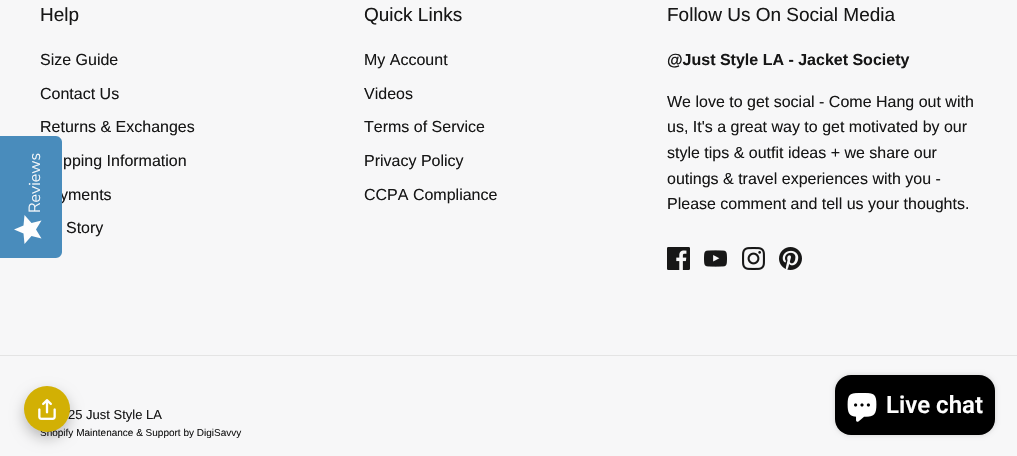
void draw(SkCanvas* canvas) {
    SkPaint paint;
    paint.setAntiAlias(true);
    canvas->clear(0xFFF7F7F8);
    SkFont font1(fontMgr->matchFamilyStyle("Arimo", SkFontStyle::Normal()), 16);
    font1.setSubpixel(true);
    paint.setColor(0xFF171717);
    canvas->drawString("yments", 60, 200, font1, paint);
    paint.setColor(0xFF498CBC);
    canvas->drawPath(SkPathBuilder().moveTo(0, 258).lineTo(0, 136).lineTo(56, 136).cubicTo(59, 136, 62, 139, 62, 142).lineTo(62, 252).cubicTo(62, 255, 59, 258, 56, 258).close().detach(), paint);
    SkFont font2(fontMgr->matchFamilyStyle("Nunito Sans", SkFontStyle(300, SkFontStyle::kNormal_Width, SkFontStyle::kUpright_Slant)), 16);
    font2.setSubpixel(true);
    paint.setColor(0xFFFEFEFE);
    canvas->save();
    canvas->rotate(-90, 40, 213);
    canvas->drawString("Reviews", 40, 213, font2, paint);
    canvas->restore();
    {
        const SkColor colors[] = {0xFFFEFEFE, 0xFFEAEAEA};
        const float stops[] = {1, 1};
        const SkPoint ends[] = {{14, 244}, {14, 215}};
        paint.setShader(SkGradientShader::MakeLinear(ends, colors, stops, 2, SkTileMode::kClamp));
        paint.setAlpha(255);
    }
    canvas->drawPath(SkPathBuilder().moveTo(36, 229.5f).lineTo(41.5f, 220.5f).lineTo(31.5f, 223).lineTo(24.5f, 215).lineTo(23.5f, 225.5f).lineTo(14, 229.5f).lineTo(23.5f, 233.5f).lineTo(24.5f, 244).lineTo(31.5f, 236).lineTo(41.5f, 238.5f).close().detach(), paint);
    SkFont font3(fontMgr->matchFamilyStyle("Arimo", SkFontStyle::Normal()), 19);
    font3.setSubpixel(true);
    paint.setShader(nullptr);
    paint.setColor(0xFF171717);
    canvas->drawString("Help", 40, 21, font3, paint);
    canvas->drawString("Size Guide", 40, 65, font1, paint);
    canvas->drawString("Contact Us", 40, 99, font1, paint);
    canvas->drawString("Returns & Exchanges", 40, 132, font1, paint);
    canvas->drawString("pping Information", 63, 166, font1, paint);
    canvas->drawString("Story", 66, 233, font1, paint);
    canvas->drawString("Quick Links", 364, 21, font3, paint);
    canvas->drawString("My Account", 364, 65, font1, paint);
    canvas->drawString("Videos", 364, 99, font1, paint);
    canvas->drawString("Terms of Service", 364, 132, font1, paint);
    canvas->drawString("Privacy Policy", 364, 166, font1, paint);
    canvas->drawString("CCPA Compliance", 364, 200, font1, paint);
    canvas->drawString("Follow Us On Social Media", 667, 21, font3, paint);
    SkFont font4(fontMgr->matchFamilyStyle("Arimo", SkFontStyle::Bold()), 16);
    font4.setSubpixel(true);
    canvas->drawString("@Just Style LA - Jacket Society", 667, 65, font4, paint);
    canvas->drawString("We love to get social - Come Hang out with", 667, 107, font1, paint);
    canvas->drawString("us, It's a great way to get motivated by our", 667, 132, font1, paint);
    canvas->drawString("style tips & outfit ideas + we share our", 667, 158, font1, paint);
    canvas->drawString("outings & travel experiences with you -", 667, 184, font1, paint);
    canvas->drawString("Please comment and tell us your thoughts.", 667, 209, font1, paint);
    canvas->drawImageRect(SkImages::DeferredFromEncodedData(SkData::MakeFromFileName("img1.png")), SkRect::MakeXYWH(667, 247, 23, 23), SkSamplingOptions());
    canvas->drawImageRect(SkImages::DeferredFromEncodedData(SkData::MakeFromFileName("img2.png")), SkRect::MakeXYWH(704, 250, 23, 17), SkSamplingOptions());
    canvas->drawImageRect(SkImages::DeferredFromEncodedData(SkData::MakeFromFileName("img3.png")), SkRect::MakeXYWH(742, 247, 23, 23), SkSamplingOptions());
    canvas->drawImageRect(SkImages::DeferredFromEncodedData(SkData::MakeFromFileName("img4.png")), SkRect::MakeXYWH(779, 247, 23, 23), SkSamplingOptions());
    paint.setColor(0xFFE4E4E4);
    canvas->drawRect(SkRect::MakeXYWH(0, 355, 1017, 1), paint);
    SkFont font5(fontMgr->matchFamilyStyle("Arimo", SkFontStyle::Normal()), 13);
    font5.setSubpixel(true);
    paint.setColor(0xFF171717);
    canvas->drawString("25 Just Style LA", 68, 419, font5, paint);
    SkFont font6(fontMgr->matchFamilyStyle("Arimo", SkFontStyle::Normal()), 10);
    font6.setSubpixel(true);
    canvas->drawString("Shopify Maintenance & Support by DigiSavvy", 40, 436, font6, paint);
    paint.setColor(0x40000000);
    paint.setMaskFilter(SkMaskFilter::MakeBlur(kNormal_SkBlurStyle, 7));
    canvas->drawRoundRect(SkRect::MakeXYWH(24, 392, 46, 46), 23, 23, paint);
    paint.setMaskFilter(nullptr);
    paint.setColor(0xFFD2B004);
    canvas->drawCircle(47, 409, 23, paint);
    canvas->drawImageRect(SkImages::DeferredFromEncodedData(SkData::MakeFromFileName("img5.png")), SkRect::MakeXYWH(38, 399, 18, 21), SkSamplingOptions());
    paint.setColor(0x26000000);
    paint.setMaskFilter(SkMaskFilter::MakeBlur(kNormal_SkBlurStyle, 2.5f));
    canvas->drawRoundRect(SkRect::MakeXYWH(835, 375, 160, 60), 16, 16, paint);
    paint.setMaskFilter(nullptr);
    paint.setColor(0xFF000000);
    canvas->drawRoundRect(SkRect::MakeXYWH(835, 375, 160, 60), 16, 16, paint);
    canvas->drawImageRect(SkImages::DeferredFromEncodedData(SkData::MakeFromFileName("img6.png")), SkRect::MakeXYWH(847, 393, 30, 29), SkSamplingOptions());
    SkFont font7(fontMgr->matchFamilyStyle("Roboto", SkFontStyle(600, SkFontStyle::kNormal_Width, SkFontStyle::kUpright_Slant)), 24);
    font7.setSubpixel(true);
    paint.setColor(0xFFFEFEFE);
    canvas->drawString("Live chat", 886, 413, font7, paint);
}
